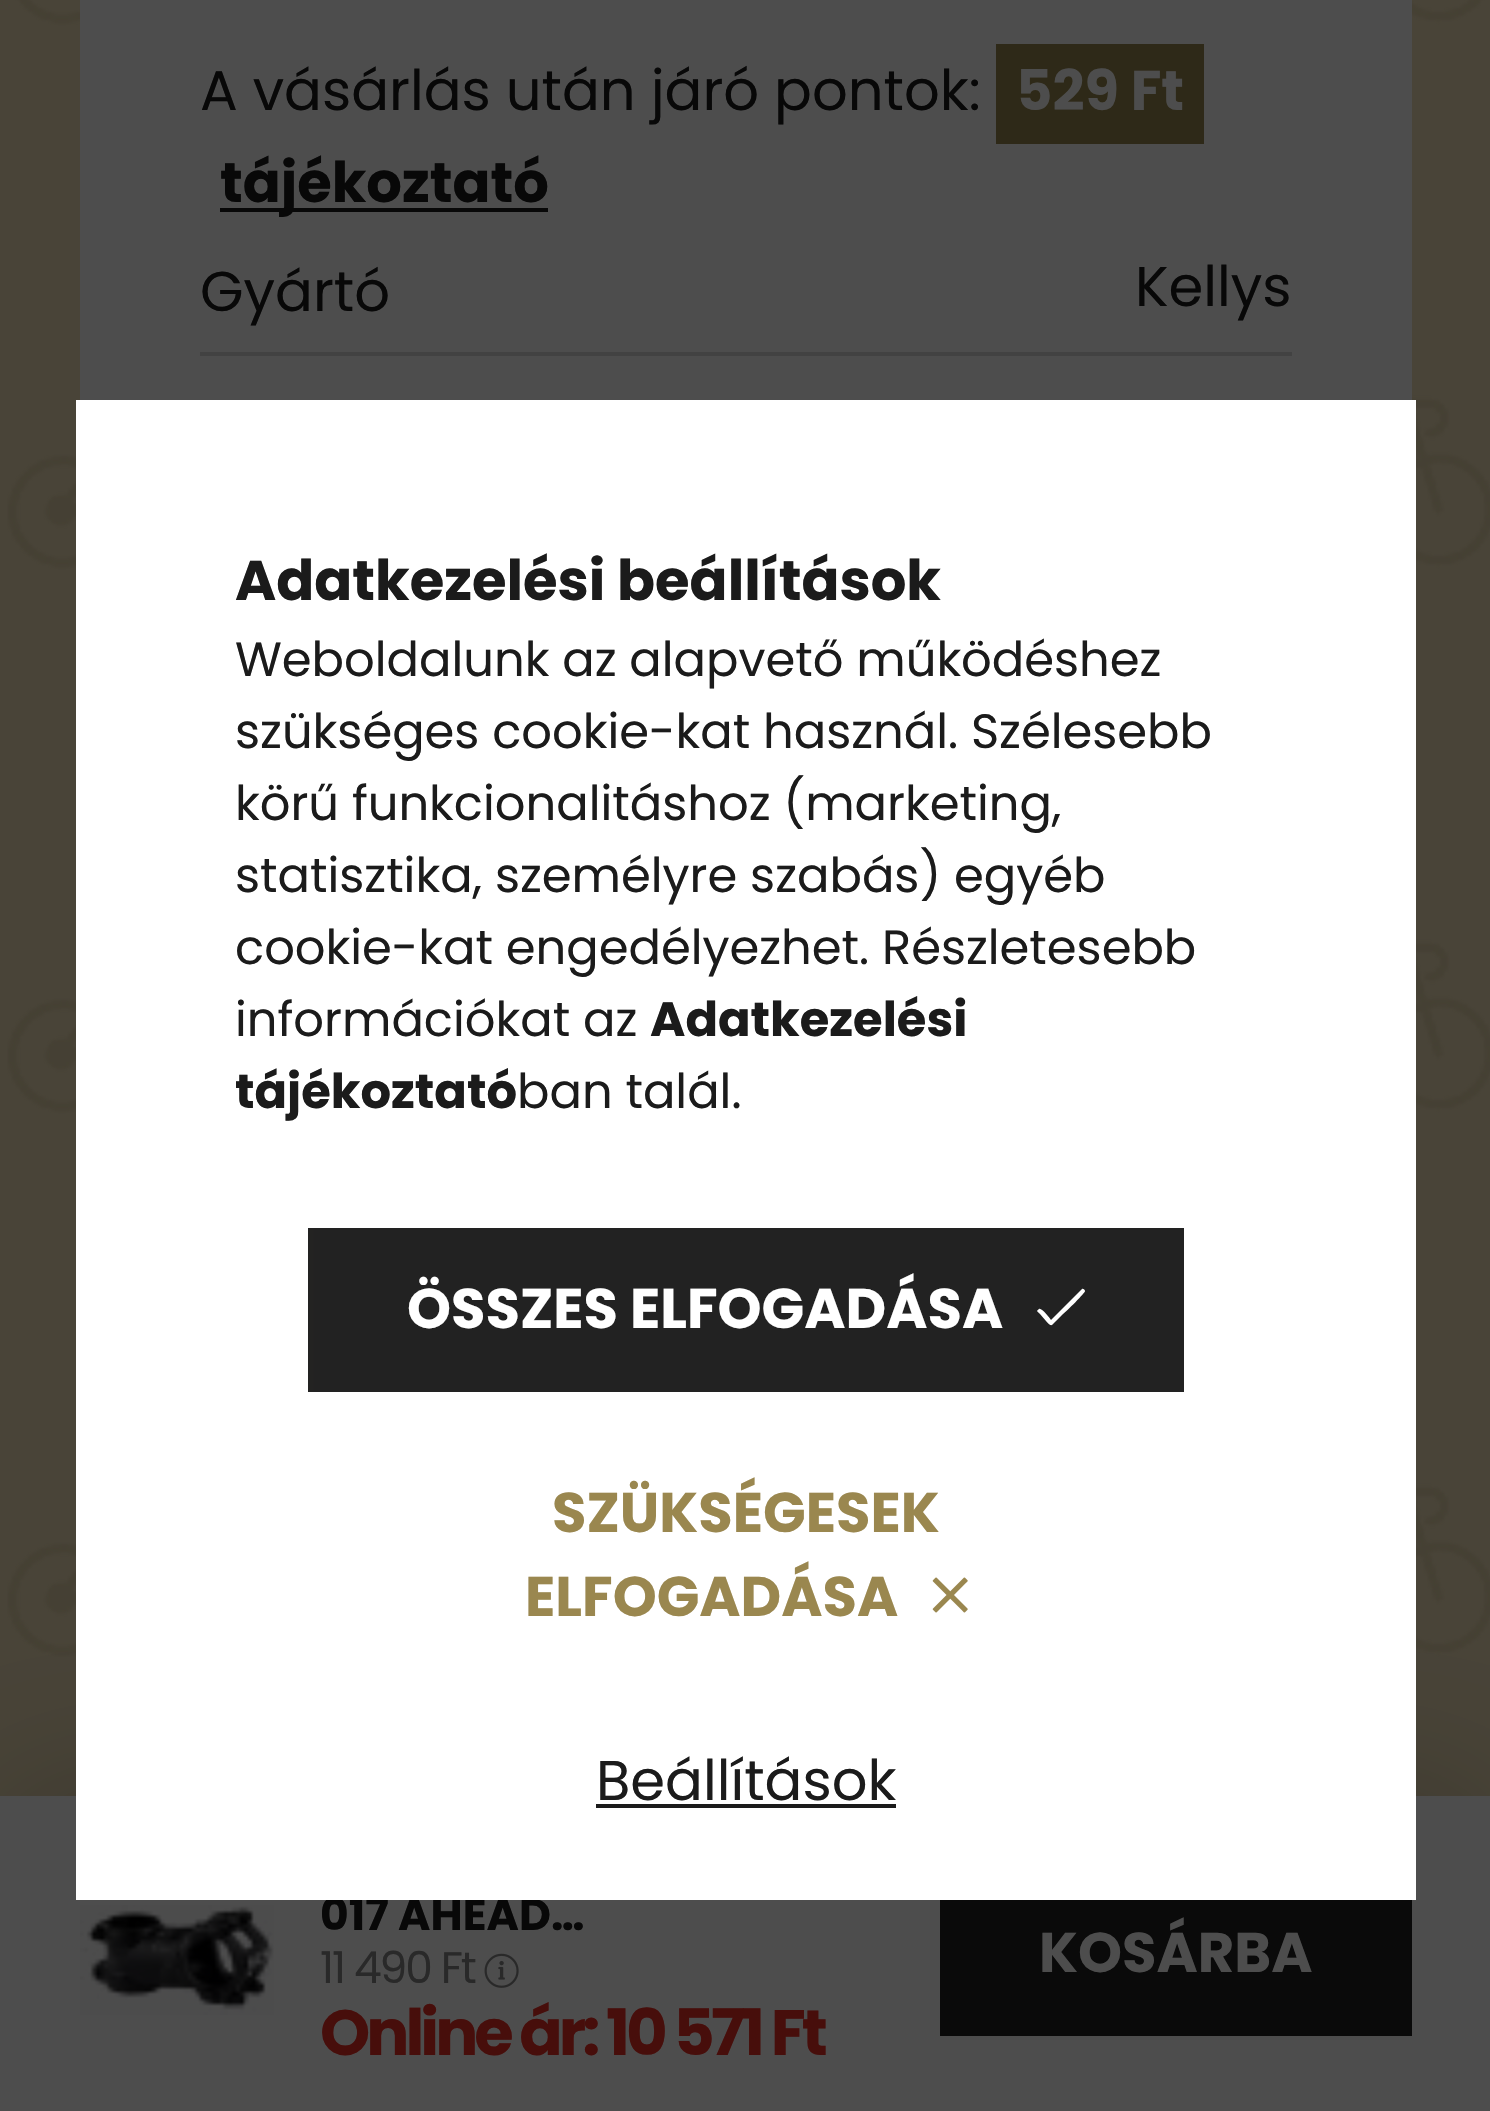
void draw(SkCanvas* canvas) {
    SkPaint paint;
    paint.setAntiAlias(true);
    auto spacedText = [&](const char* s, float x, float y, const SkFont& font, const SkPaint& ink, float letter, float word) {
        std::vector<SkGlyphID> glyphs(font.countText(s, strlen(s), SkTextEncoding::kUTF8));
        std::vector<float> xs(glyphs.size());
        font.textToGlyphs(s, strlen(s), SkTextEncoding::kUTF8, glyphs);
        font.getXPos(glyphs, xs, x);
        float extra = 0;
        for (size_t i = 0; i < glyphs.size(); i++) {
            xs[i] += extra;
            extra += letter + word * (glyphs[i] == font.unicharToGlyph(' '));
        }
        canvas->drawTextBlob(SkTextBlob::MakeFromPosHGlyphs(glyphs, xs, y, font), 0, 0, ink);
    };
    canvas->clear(0xFF494438);
    canvas->drawImageRect(SkImages::DeferredFromEncodedData(SkData::MakeFromFileName("img1.png")), SkRect::MakeXYWH(7, 0, 1483, 1657), SkSamplingOptions());
    paint.setColor(0xFF4D4D4D);
    canvas->drawRect(SkRect::MakeXYWH(80, 0, 1332, 400), paint);
    SkFont font1(fontMgr->matchFamilyStyle("Poppins", SkFontStyle::Normal()), 56);
    font1.setSubpixel(true);
    paint.setColor(0xFF080808);
    canvas->drawString("A vásárlás után járó pontok:", 200, 110, font1, paint);
    paint.setColor(0xFF2E2918);
    canvas->drawRect(SkRect::MakeXYWH(996, 44, 208, 100), paint);
    SkFont font2(fontMgr->matchFamilyStyle("Poppins", SkFontStyle::Bold()), 56);
    font2.setSubpixel(true);
    paint.setColor(0xFF4D4D4D);
    canvas->drawString("529 Ft", 1016, 110, font2, paint);
    paint.setColor(0xFF080808);
    canvas->drawRect(SkRect::MakeXYWH(220, 208, 328, 4), paint);
    canvas->drawString("tájékoztató", 220, 202, font2, paint);
    paint.setColor(0xFF424242);
    canvas->drawRect(SkRect::MakeXYWH(200, 352, 1092, 4), paint);
    paint.setColor(0xFF080808);
    canvas->drawString("Gyártó", 200, 311, font1, paint);
    canvas->drawString("Kellys", 1135, 306, font1, paint);
    paint.setColor(0x33000000);
    paint.setMaskFilter(SkMaskFilter::MakeBlur(kNormal_SkBlurStyle, 80));
    canvas->drawRect(SkRect::MakeXYWH(0, 1796, 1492, 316), paint);
    paint.setMaskFilter(nullptr);
    paint.setColor(0xFF4D4D4D);
    canvas->drawRect(SkRect::MakeXYWH(0, 1796, 1490, 315), paint);
    canvas->drawImageRect(SkImages::DeferredFromEncodedData(SkData::MakeFromFileName("img2.png")), SkRect::MakeXYWH(80, 1905, 194, 110), SkSamplingOptions());
    SkFont font3(fontMgr->matchFamilyStyle("Poppins", SkFontStyle::Bold()), 44);
    font3.setSubpixel(true);
    paint.setColor(0xFF080808);
    canvas->drawString("017 AHEAD…", 320, 1930, font3, paint);
    SkFont font4(fontMgr->matchFamilyStyle("Poppins", SkFontStyle::Normal()), 44);
    font4.setSubpixel(true);
    paint.setColor(0xFF292929);
    spacedText("11 490 Ft", 320, 1983, font4, paint, -2, 0);
    canvas->drawImageRect(SkImages::DeferredFromEncodedData(SkData::MakeFromFileName("img3.png")), SkRect::MakeXYWH(484, 1953, 35, 35), SkSamplingOptions());
    SkFont font5(fontMgr->matchFamilyStyle("Poppins", SkFontStyle::Bold()), 64);
    font5.setSubpixel(true);
    paint.setColor(0xFF470E0B);
    spacedText("Online ár: 10 571 Ft", 320, 2055, font5, paint, -4, 0);
    {
        const SkColor colors[] = {0xFF2E2918, 0xFF2E2918, 0xFF0A0A0A, 0xFF0A0A0A};
        const float stops[] = {0, 0.33f, 0.67f, 1};
        const SkPoint ends[] = {{-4, 1954}, {1412, 1954}};
        paint.setShader(SkGradientShader::MakeLinear(ends, colors, stops, 4, SkTileMode::kClamp));
        paint.setAlpha(255);
    }
    canvas->drawRect(SkRect::MakeXYWH(940, 1900, 472, 136), paint);
    paint.setShader(nullptr);
    paint.setColor(0xFF4D4D4D);
    canvas->drawString("KOSÁRBA", 1039, 1972, font2, paint);
    paint.setColor(0xFFFFFFFF);
    canvas->drawRect(SkRect::MakeXYWH(76, 400, 1340, 1500), paint);
    paint.setColor(0xFF1B1B1B);
    canvas->drawString("Adatkezelési beállítások", 235, 600, font2, paint);
    SkFont font6(fontMgr->matchFamilyStyle("Poppins", SkFontStyle::Normal()), 48);
    font6.setSubpixel(true);
    canvas->drawString("Weboldalunk az alapvető működéshez", 235, 676, font6, paint);
    canvas->drawString("szükséges cookie-kat használ. Szélesebb", 235, 748, font6, paint);
    canvas->drawString("körű funkcionalitáshoz (marketing,", 235, 820, font6, paint);
    canvas->drawString("statisztika, személyre szabás) egyéb", 235, 892, font6, paint);
    canvas->drawString("cookie-kat engedélyezhet. Részletesebb", 235, 964, font6, paint);
    canvas->drawString("információkat az", 235, 1036, font6, paint);
    SkFont font7(fontMgr->matchFamilyStyle("Poppins", SkFontStyle::Bold()), 48);
    font7.setSubpixel(true);
    canvas->drawString("Adatkezelési", 650, 1036, font7, paint);
    canvas->drawString("tájékoztató", 235, 1108, font7, paint);
    canvas->drawString("ban talál.", 517, 1108, font6, paint);
    {
        const SkColor colors[] = {0xFF9A874F, 0xFF9A874F, 0xFF222222, 0xFF222222};
        const float stops[] = {0, 0.33f, 0.67f, 1};
        const SkPoint ends[] = {{-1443, 1310}, {1185, 1310}};
        paint.setShader(SkGradientShader::MakeLinear(ends, colors, stops, 4, SkTileMode::kClamp));
        paint.setAlpha(255);
    }
    canvas->drawRect(SkRect::MakeXYWH(308, 1228, 876, 164), paint);
    paint.setShader(nullptr);
    paint.setColor(0xFFFFFFFF);
    canvas->drawString("ÖSSZES ELFOGADÁSA", 407, 1328, font2, paint);
    canvas->drawPath(SkPathBuilder().moveTo(1082, 1289).cubicTo(1083, 1288, 1085, 1290, 1085, 1291).cubicTo(1086, 1292, 1066, 1312, 1063, 1314).lineTo(1052, 1325).cubicTo(1050, 1326, 1047, 1322, 1046, 1321).lineTo(1040, 1314).cubicTo(1037, 1311, 1036, 1311, 1039, 1309).cubicTo(1041, 1307, 1050, 1318, 1051, 1320).close().detach(), paint);
    paint.setColor(0xFF9A874F);
    canvas->drawString("SZÜKSÉGESEK", 552, 1532, font2, paint);
    canvas->drawString("ELFOGADÁSA", 525, 1616, font2, paint);
    canvas->drawImageRect(SkImages::DeferredFromEncodedData(SkData::MakeFromFileName("img4.png")), SkRect::MakeXYWH(932, 1577, 36, 36), SkSamplingOptions());
    paint.setColor(0xFF1B1B1B);
    canvas->drawString("Beállítások", 596, 1800, font1, paint);
    canvas->drawRect(SkRect::MakeXYWH(596, 1804, 300, 4), paint);
}
